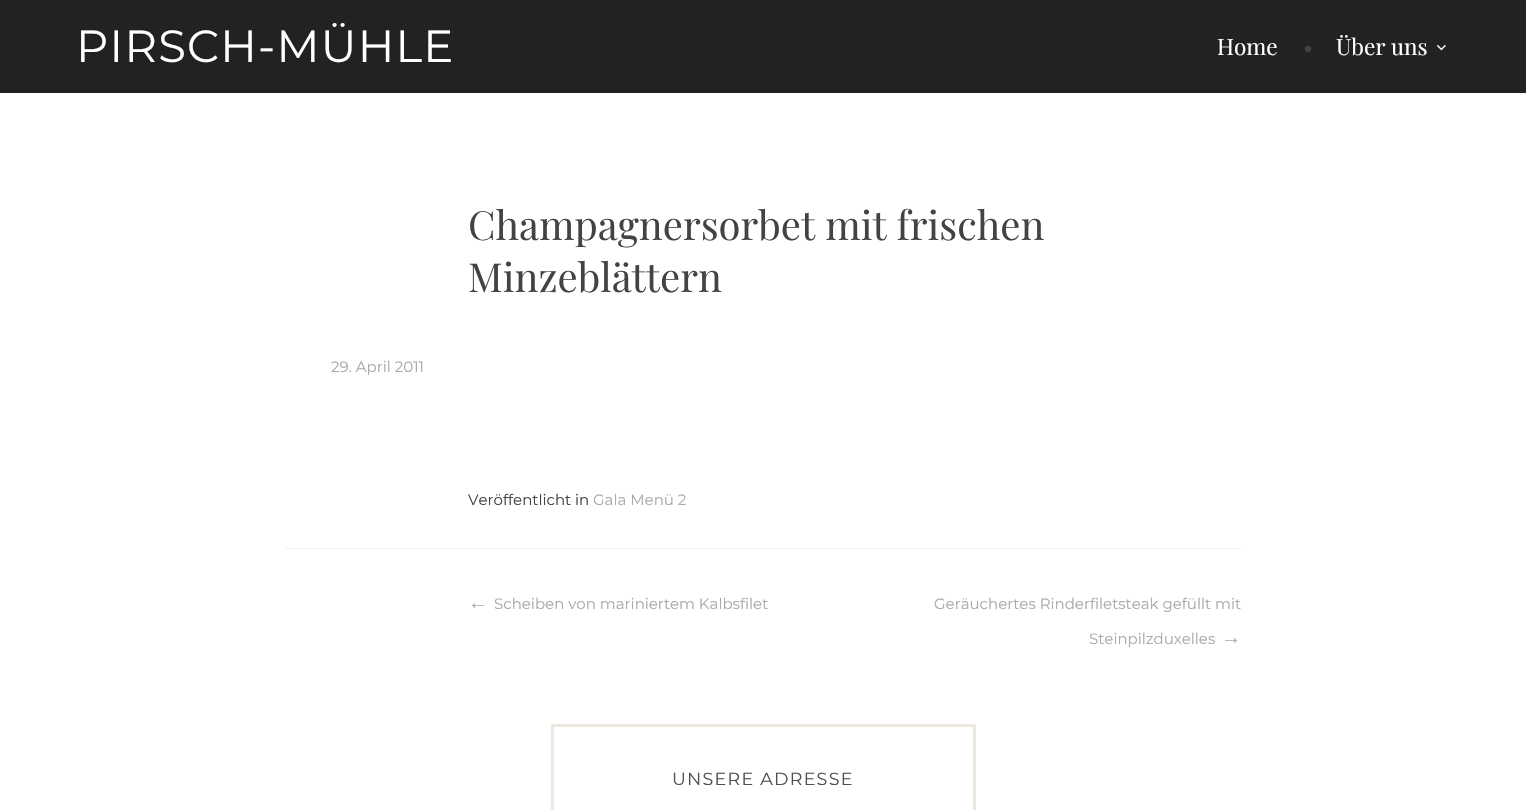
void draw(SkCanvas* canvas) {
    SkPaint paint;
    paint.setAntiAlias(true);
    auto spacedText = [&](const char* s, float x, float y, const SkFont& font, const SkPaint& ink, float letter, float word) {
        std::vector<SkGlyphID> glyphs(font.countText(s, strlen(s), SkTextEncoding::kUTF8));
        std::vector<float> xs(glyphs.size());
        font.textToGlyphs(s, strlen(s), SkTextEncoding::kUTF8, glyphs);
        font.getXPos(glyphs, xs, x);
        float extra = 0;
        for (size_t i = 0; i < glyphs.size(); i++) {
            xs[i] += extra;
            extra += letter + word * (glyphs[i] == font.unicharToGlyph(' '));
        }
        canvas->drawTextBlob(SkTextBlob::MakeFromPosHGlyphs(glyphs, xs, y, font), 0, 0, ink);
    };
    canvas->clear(0xFFFFFFFF);
    paint.setColor(0xFF222222);
    canvas->drawRect(SkRect::MakeXYWH(0, 0, 1526, 93), paint);
    SkFont font1(fontMgr->matchFamilyStyle("Montserrat", SkFontStyle::Normal()), 45);
    font1.setSubpixel(true);
    paint.setColor(0xFFFFFFFF);
    spacedText("PIRSCH-MÜHLE", 76, 62, font1, paint, 1.25f, 0);
    SkFont font2(fontMgr->matchFamilyStyle("Playfair Display", SkFontStyle::Normal()), 22.5f);
    font2.setSubpixel(true);
    canvas->drawString("Home", 1217, 55, font2, paint);
    paint.setColor(0xFF434343);
    canvas->drawString("•", 1303, 55, font2, paint);
    paint.setColor(0xFFFFFFFF);
    canvas->drawString("Über uns", 1336, 55, font2, paint);
    canvas->drawImageRect(SkImages::DeferredFromEncodedData(SkData::MakeFromFileName("img1.png")), SkRect::MakeXYWH(1436, 44, 10, 7), SkSamplingOptions());
    paint.setColor(0xFFF2F2F2);
    canvas->drawRect(SkRect::MakeXYWH(285, 548, 956, 1), paint);
    SkFont font3(fontMgr->matchFamilyStyle("Playfair Display", SkFontStyle::Normal()), 40);
    font3.setSubpixel(true);
    paint.setColor(0xFF434343);
    canvas->drawString("Champagnersorbet mit frischen", 468, 240, font3, paint);
    canvas->drawString("Minzeblättern", 468, 292, font3, paint);
    SkFont font4(fontMgr->matchFamilyStyle("Montserrat", SkFontStyle::Normal()), 15);
    font4.setSubpixel(true);
    paint.setColor(0xFFAAAAAA);
    canvas->drawString("29. April 2011", 331, 372, font4, paint);
    paint.setColor(0xFF434343);
    canvas->drawString("Veröffentlicht in", 468, 505, font4, paint);
    paint.setColor(0xFFAAAAAA);
    canvas->drawString("Gala Menü 2", 593, 505, font4, paint);
    SkFont font5(fontMgr->matchFamilyStyle("Liberation Sans", SkFontStyle::Normal()), 20);
    font5.setSubpixel(true);
    canvas->drawString("←", 468, 609, font5, paint);
    canvas->drawString("Scheiben von mariniertem Kalbsfilet", 494, 609, font4, paint);
    canvas->drawString("Geräuchertes Rinderfiletsteak gefüllt mit", 934, 609, font4, paint);
    canvas->drawString("Steinpilzduxelles", 1089, 644, font4, paint);
    canvas->drawString("→", 1221, 644, font5, paint);
    paint.setStyle(SkPaint::kStroke_Style);
    paint.setStrokeWidth(3);
    paint.setColor(0xFFECE8E0);
    canvas->drawRect(SkRect::MakeXYWH(552.5f, 725.5f, 422, 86), paint);
    SkFont font6(fontMgr->matchFamilyStyle("Montserrat", SkFontStyle::Normal()), 17.5f);
    font6.setSubpixel(true);
    paint.setStyle(SkPaint::kFill_Style);
    paint.setColor(0xFF4F4F4F);
    spacedText("UNSERE ADRESSE", 672, 785, font6, paint, 1.25f, 0);
}
